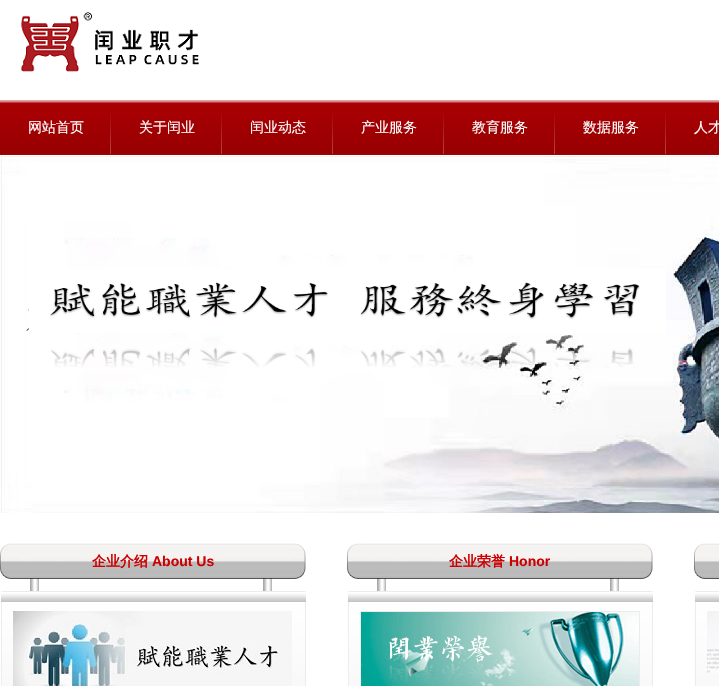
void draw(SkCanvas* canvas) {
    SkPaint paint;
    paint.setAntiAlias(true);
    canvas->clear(0xFFFFFFFF);
    canvas->drawImageRect(SkImages::DeferredFromEncodedData(SkData::MakeFromFileName("img1.png")), SkRect::MakeXYWH(21, 12, 178, 60), SkSamplingOptions());
    canvas->drawImageRect(SkImages::DeferredFromEncodedData(SkData::MakeFromFileName("img2.png")), SkRect::MakeXYWH(0, 100, 719, 55), SkSamplingOptions());
    canvas->drawImageRect(SkImages::DeferredFromEncodedData(SkData::MakeFromFileName("img3.png")), SkRect::MakeXYWH(110, 112, 1, 42), SkSamplingOptions());
    SkFont font1(fontMgr->matchFamilyStyle("WenQuanYi Zen Hei", SkFontStyle(500, SkFontStyle::kNormal_Width, SkFontStyle::kUpright_Slant)), 14);
    font1.setSubpixel(true);
    paint.setColor(0xFFFFFFFF);
    canvas->drawString("网站首页", 28, 132, font1, paint);
    canvas->drawImageRect(SkImages::DeferredFromEncodedData(SkData::MakeFromFileName("img3.png")), SkRect::MakeXYWH(221, 112, 1, 42), SkSamplingOptions());
    canvas->drawString("关于闰业", 139, 132, font1, paint);
    canvas->drawImageRect(SkImages::DeferredFromEncodedData(SkData::MakeFromFileName("img3.png")), SkRect::MakeXYWH(332, 112, 1, 42), SkSamplingOptions());
    canvas->drawString("闰业动态", 250, 132, font1, paint);
    canvas->drawImageRect(SkImages::DeferredFromEncodedData(SkData::MakeFromFileName("img3.png")), SkRect::MakeXYWH(443, 112, 1, 42), SkSamplingOptions());
    canvas->drawString("产业服务", 361, 132, font1, paint);
    canvas->drawImageRect(SkImages::DeferredFromEncodedData(SkData::MakeFromFileName("img3.png")), SkRect::MakeXYWH(554, 112, 1, 42), SkSamplingOptions());
    canvas->drawString("教育服务", 472, 132, font1, paint);
    canvas->drawImageRect(SkImages::DeferredFromEncodedData(SkData::MakeFromFileName("img3.png")), SkRect::MakeXYWH(665, 112, 1, 42), SkSamplingOptions());
    canvas->drawString("数据服务", 583, 132, font1, paint);
    canvas->drawString("人才", 694, 132, font1, paint);
    canvas->drawImageRect(SkImages::DeferredFromEncodedData(SkData::MakeFromFileName("img4.png")), SkRect::MakeXYWH(0, 155, 719, 358), SkSamplingOptions());
    canvas->drawImageRect(SkImages::DeferredFromEncodedData(SkData::MakeFromFileName("img5.png")), SkRect::MakeXYWH(0, 543, 306, 36), SkSamplingOptions());
    SkFont font2(fontMgr->matchFamilyStyle("WenQuanYi Zen Hei", SkFontStyle::Bold()), 14);
    font2.setSubpixel(true);
    paint.setColor(0xFFCC0000);
    canvas->drawString("企业介绍", 92, 566, font2, paint);
    SkFont font3(fontMgr->matchFamilyStyle("Liberation Sans", SkFontStyle::Bold()), 14);
    font3.setSubpixel(true);
    canvas->drawString("About Us", 152, 566, font3, paint);
    canvas->drawImageRect(SkImages::DeferredFromEncodedData(SkData::MakeFromFileName("img6.png")), SkRect::MakeXYWH(30, 579, 242, 12), SkSamplingOptions());
    canvas->drawImageRect(SkImages::DeferredFromEncodedData(SkData::MakeFromFileName("img7.png")), SkRect::MakeXYWH(0, 591, 306, 95), SkSamplingOptions());
    canvas->drawImageRect(SkImages::DeferredFromEncodedData(SkData::MakeFromFileName("img8.png")), SkRect::MakeXYWH(13, 611, 279, 75), SkSamplingOptions());
    canvas->drawImageRect(SkImages::DeferredFromEncodedData(SkData::MakeFromFileName("img5.png")), SkRect::MakeXYWH(347, 543, 306, 36), SkSamplingOptions());
    canvas->drawString("企业荣誉", 449, 566, font2, paint);
    canvas->drawString("Honor", 509, 566, font3, paint);
    canvas->drawImageRect(SkImages::DeferredFromEncodedData(SkData::MakeFromFileName("img6.png")), SkRect::MakeXYWH(377, 579, 242, 12), SkSamplingOptions());
    canvas->drawImageRect(SkImages::DeferredFromEncodedData(SkData::MakeFromFileName("img7.png")), SkRect::MakeXYWH(347, 591, 306, 95), SkSamplingOptions());
    canvas->drawImageRect(SkImages::DeferredFromEncodedData(SkData::MakeFromFileName("img9.png")), SkRect::MakeXYWH(360, 611, 280, 75), SkSamplingOptions());
    canvas->drawImageRect(SkImages::DeferredFromEncodedData(SkData::MakeFromFileName("img10.png")), SkRect::MakeXYWH(694, 543, 25, 36), SkSamplingOptions());
    canvas->drawImageRect(SkImages::DeferredFromEncodedData(SkData::MakeFromFileName("img11.png")), SkRect::MakeXYWH(694, 591, 25, 95), SkSamplingOptions());
    canvas->drawImageRect(SkImages::DeferredFromEncodedData(SkData::MakeFromFileName("img12.png")), SkRect::MakeXYWH(707, 611, 12, 62), SkSamplingOptions());
}
